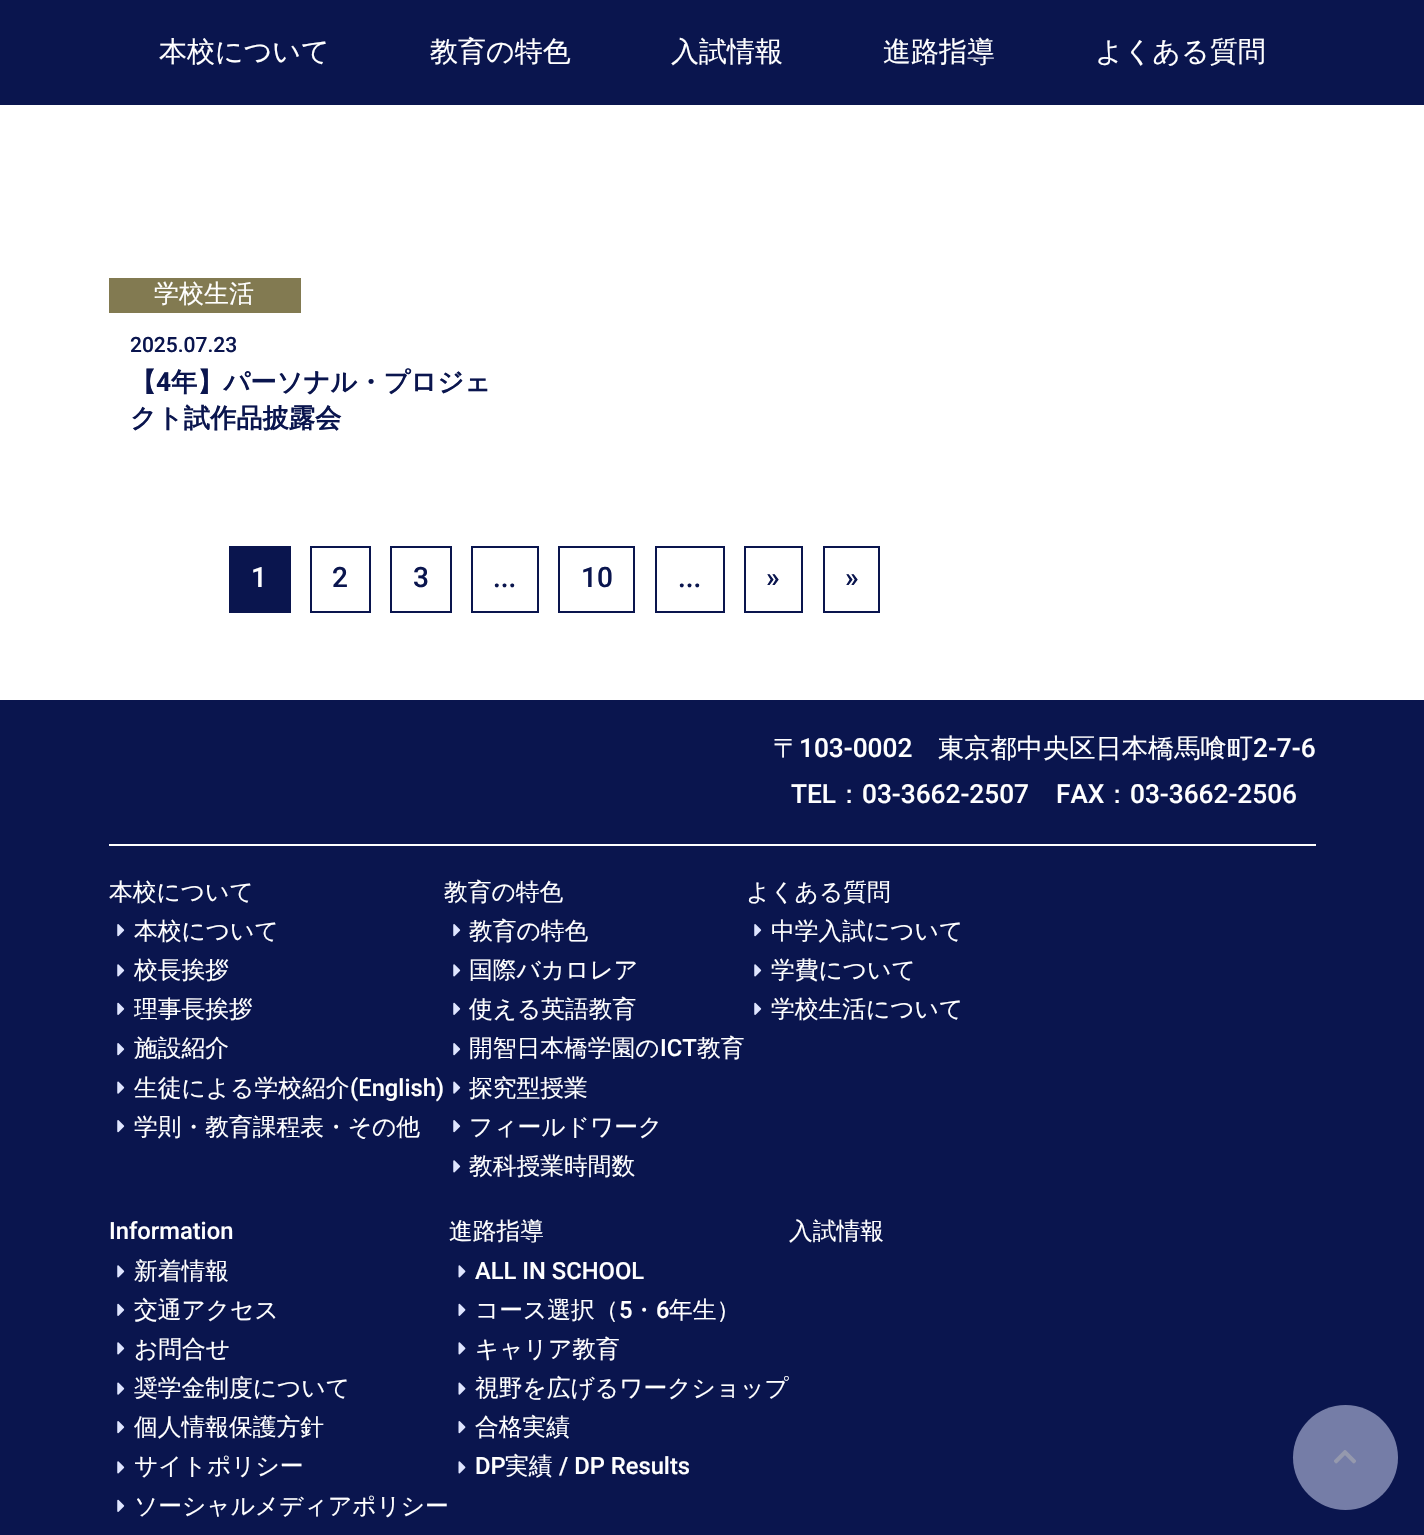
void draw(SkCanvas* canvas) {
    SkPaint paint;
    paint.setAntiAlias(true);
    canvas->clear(0xFFFFFFFF);
    paint.setColor(0xFF0A154E);
    canvas->drawRect(SkRect::MakeXYWH(0, 0, 1424, 105), paint);
    SkFont font1(fontMgr->matchFamilyStyle("WenQuanYi Zen Hei", SkFontStyle(500, SkFontStyle::kNormal_Width, SkFontStyle::kUpright_Slant)), 28);
    font1.setSubpixel(true);
    paint.setColor(0xFFFFFFFF);
    canvas->drawString("本校について", 159, 61, font1, paint);
    canvas->drawString("教育の特色", 430, 61, font1, paint);
    canvas->drawString("入試情報", 671, 61, font1, paint);
    canvas->drawString("進路指導", 883, 61, font1, paint);
    canvas->drawString("よくある質問", 1095, 61, font1, paint);
    paint.setColor(0xFF827A51);
    canvas->drawRect(SkRect::MakeXYWH(109, 278, 192, 35), paint);
    SkFont font2(fontMgr->matchFamilyStyle("WenQuanYi Zen Hei", SkFontStyle(500, SkFontStyle::kNormal_Width, SkFontStyle::kUpright_Slant)), 25);
    font2.setSubpixel(true);
    paint.setColor(0xFFFFFFFF);
    canvas->drawString("学校生活", 154, 302, font2, paint);
    SkFont font3(fontMgr->matchFamilyStyle("Roboto", SkFontStyle(500, SkFontStyle::kNormal_Width, SkFontStyle::kUpright_Slant)), 21);
    font3.setSubpixel(true);
    paint.setColor(0xFF0A154E);
    canvas->drawString("2025.07.23", 130, 352, font3, paint);
    SkFont font4(fontMgr->matchFamilyStyle("WenQuanYi Zen Hei", SkFontStyle::Bold()), 26.25f);
    font4.setSubpixel(true);
    canvas->drawString("【", 130, 391, font4, paint);
    SkFont font5(fontMgr->matchFamilyStyle("Roboto", SkFontStyle::Bold()), 26.25f);
    font5.setSubpixel(true);
    canvas->drawString("4", 156, 391, font5, paint);
    canvas->drawString("年】パーソナル・プロジェ", 171, 391, font4, paint);
    canvas->drawString("クト試作品披露会", 130, 427, font4, paint);
    canvas->drawRect(SkRect::MakeXYWH(229, 546, 62, 67), paint);
    SkFont font6(fontMgr->matchFamilyStyle("Roboto", SkFontStyle(500, SkFontStyle::kNormal_Width, SkFontStyle::kUpright_Slant)), 28);
    font6.setSubpixel(true);
    paint.setColor(0xFFFFFFFF);
    canvas->drawString("1", 251, 587, font6, paint);
    paint.setStyle(SkPaint::kStroke_Style);
    paint.setStrokeWidth(2);
    paint.setColor(0xFF0A154E);
    canvas->drawRect(SkRect::MakeXYWH(311, 547, 59, 65), paint);
    paint.setStyle(SkPaint::kFill_Style);
    canvas->drawString("2", 332, 587, font6, paint);
    paint.setStyle(SkPaint::kStroke_Style);
    canvas->drawRect(SkRect::MakeXYWH(391, 547, 60, 65), paint);
    paint.setStyle(SkPaint::kFill_Style);
    canvas->drawString("3", 413, 587, font6, paint);
    paint.setStyle(SkPaint::kStroke_Style);
    canvas->drawRect(SkRect::MakeXYWH(472, 547, 66, 65), paint);
    paint.setStyle(SkPaint::kFill_Style);
    canvas->drawString("...", 493, 587, font6, paint);
    paint.setStyle(SkPaint::kStroke_Style);
    canvas->drawRect(SkRect::MakeXYWH(559, 547, 75, 65), paint);
    paint.setStyle(SkPaint::kFill_Style);
    canvas->drawString("10", 581, 587, font6, paint);
    paint.setStyle(SkPaint::kStroke_Style);
    canvas->drawRect(SkRect::MakeXYWH(656, 547, 68, 65), paint);
    paint.setStyle(SkPaint::kFill_Style);
    canvas->drawString("...", 678, 587, font6, paint);
    paint.setStyle(SkPaint::kStroke_Style);
    canvas->drawRect(SkRect::MakeXYWH(745, 547, 57, 65), paint);
    paint.setStyle(SkPaint::kFill_Style);
    canvas->drawString("»", 766, 587, font6, paint);
    paint.setStyle(SkPaint::kStroke_Style);
    canvas->drawRect(SkRect::MakeXYWH(824, 547, 55, 65), paint);
    paint.setStyle(SkPaint::kFill_Style);
    canvas->drawString("»", 845, 587, font6, paint);
    canvas->drawRect(SkRect::MakeXYWH(0, 700, 1424, 835), paint);
    paint.setColor(0xFFFFFFFF);
    canvas->drawRect(SkRect::MakeXYWH(109, 844, 1207, 2), paint);
    SkFont font7(fontMgr->matchFamilyStyle("WenQuanYi Zen Hei", SkFontStyle(500, SkFontStyle::kNormal_Width, SkFontStyle::kUpright_Slant)), 26.25f);
    font7.setSubpixel(true);
    canvas->drawString("〒", 773, 757, font7, paint);
    SkFont font8(fontMgr->matchFamilyStyle("Roboto", SkFontStyle(500, SkFontStyle::kNormal_Width, SkFontStyle::kUpright_Slant)), 26.25f);
    font8.setSubpixel(true);
    canvas->drawString("103-0002", 799, 757, font8, paint);
    canvas->drawString("東京都中央区日本橋馬喰町", 938, 757, font7, paint);
    canvas->drawString("2-7-6", 1253, 757, font8, paint);
    canvas->drawString("TEL", 791, 803, font8, paint);
    canvas->drawString("：", 836, 803, font7, paint);
    canvas->drawString("03-3662-2507", 862, 803, font8, paint);
    canvas->drawString("FAX", 1056, 803, font8, paint);
    canvas->drawString("：", 1104, 803, font7, paint);
    canvas->drawString("03-3662-2506", 1130, 803, font8, paint);
    SkFont font9(fontMgr->matchFamilyStyle("WenQuanYi Zen Hei", SkFontStyle(500, SkFontStyle::kNormal_Width, SkFontStyle::kUpright_Slant)), 23.75f);
    font9.setSubpixel(true);
    canvas->drawString("本校について", 109, 900, font9, paint);
    canvas->drawImageRect(SkImages::DeferredFromEncodedData(SkData::MakeFromFileName("img1.png")), SkRect::MakeXYWH(117, 924, 8, 13), SkSamplingOptions());
    canvas->drawString("本校について", 134, 939, font9, paint);
    canvas->drawImageRect(SkImages::DeferredFromEncodedData(SkData::MakeFromFileName("img2.png")), SkRect::MakeXYWH(117, 964, 8, 13), SkSamplingOptions());
    canvas->drawString("校長挨拶", 134, 978, font9, paint);
    canvas->drawImageRect(SkImages::DeferredFromEncodedData(SkData::MakeFromFileName("img3.png")), SkRect::MakeXYWH(117, 1002, 8, 13), SkSamplingOptions());
    canvas->drawString("理事長挨拶", 134, 1017, font9, paint);
    canvas->drawImageRect(SkImages::DeferredFromEncodedData(SkData::MakeFromFileName("img1.png")), SkRect::MakeXYWH(117, 1043, 8, 13), SkSamplingOptions());
    canvas->drawString("施設紹介", 134, 1056, font9, paint);
    canvas->drawImageRect(SkImages::DeferredFromEncodedData(SkData::MakeFromFileName("img4.png")), SkRect::MakeXYWH(117, 1081, 8, 13), SkSamplingOptions());
    canvas->drawString("生徒による学校紹介", 134, 1096, font9, paint);
    SkFont font10(fontMgr->matchFamilyStyle("Roboto", SkFontStyle(500, SkFontStyle::kNormal_Width, SkFontStyle::kUpright_Slant)), 23.75f);
    font10.setSubpixel(true);
    canvas->drawString("(English)", 350, 1096, font10, paint);
    canvas->drawImageRect(SkImages::DeferredFromEncodedData(SkData::MakeFromFileName("img1.png")), SkRect::MakeXYWH(117, 1120, 8, 13), SkSamplingOptions());
    canvas->drawString("学則・教育課程表・その他", 134, 1135, font9, paint);
    canvas->drawString("教育の特色", 444, 900, font9, paint);
    canvas->drawImageRect(SkImages::DeferredFromEncodedData(SkData::MakeFromFileName("img1.png")), SkRect::MakeXYWH(453, 924, 8, 13), SkSamplingOptions());
    canvas->drawString("教育の特色", 469, 939, font9, paint);
    canvas->drawImageRect(SkImages::DeferredFromEncodedData(SkData::MakeFromFileName("img2.png")), SkRect::MakeXYWH(453, 964, 8, 13), SkSamplingOptions());
    canvas->drawString("国際バカロレア", 469, 978, font9, paint);
    canvas->drawImageRect(SkImages::DeferredFromEncodedData(SkData::MakeFromFileName("img3.png")), SkRect::MakeXYWH(453, 1002, 8, 13), SkSamplingOptions());
    canvas->drawString("使える英語教育", 469, 1017, font9, paint);
    canvas->drawImageRect(SkImages::DeferredFromEncodedData(SkData::MakeFromFileName("img1.png")), SkRect::MakeXYWH(453, 1043, 8, 13), SkSamplingOptions());
    canvas->drawString("開智日本橋学園の", 469, 1056, font9, paint);
    canvas->drawString("ICT", 660, 1056, font10, paint);
    canvas->drawString("教育", 697, 1056, font9, paint);
    canvas->drawImageRect(SkImages::DeferredFromEncodedData(SkData::MakeFromFileName("img4.png")), SkRect::MakeXYWH(453, 1081, 8, 13), SkSamplingOptions());
    canvas->drawString("探究型授業", 469, 1096, font9, paint);
    canvas->drawImageRect(SkImages::DeferredFromEncodedData(SkData::MakeFromFileName("img1.png")), SkRect::MakeXYWH(453, 1120, 8, 13), SkSamplingOptions());
    canvas->drawString("フィールドワーク", 469, 1135, font9, paint);
    canvas->drawImageRect(SkImages::DeferredFromEncodedData(SkData::MakeFromFileName("img2.png")), SkRect::MakeXYWH(453, 1160, 8, 13), SkSamplingOptions());
    canvas->drawString("教科授業時間数", 469, 1174, font9, paint);
    canvas->drawString("よくある質問", 746, 900, font9, paint);
    canvas->drawImageRect(SkImages::DeferredFromEncodedData(SkData::MakeFromFileName("img1.png")), SkRect::MakeXYWH(754, 924, 8, 13), SkSamplingOptions());
    canvas->drawString("中学入試について", 771, 939, font9, paint);
    canvas->drawImageRect(SkImages::DeferredFromEncodedData(SkData::MakeFromFileName("img2.png")), SkRect::MakeXYWH(754, 964, 8, 13), SkSamplingOptions());
    canvas->drawString("学費について", 771, 978, font9, paint);
    canvas->drawImageRect(SkImages::DeferredFromEncodedData(SkData::MakeFromFileName("img3.png")), SkRect::MakeXYWH(754, 1002, 8, 13), SkSamplingOptions());
    canvas->drawString("学校生活について", 771, 1017, font9, paint);
    canvas->drawString("Information", 109, 1239, font10, paint);
    canvas->drawImageRect(SkImages::DeferredFromEncodedData(SkData::MakeFromFileName("img2.png")), SkRect::MakeXYWH(117, 1265, 8, 13), SkSamplingOptions());
    canvas->drawString("新着情報", 134, 1279, font9, paint);
    canvas->drawImageRect(SkImages::DeferredFromEncodedData(SkData::MakeFromFileName("img3.png")), SkRect::MakeXYWH(117, 1303, 8, 13), SkSamplingOptions());
    canvas->drawString("交通アクセス", 134, 1318, font9, paint);
    canvas->drawImageRect(SkImages::DeferredFromEncodedData(SkData::MakeFromFileName("img2.png")), SkRect::MakeXYWH(117, 1342, 8, 13), SkSamplingOptions());
    canvas->drawString("お問合せ", 134, 1357, font9, paint);
    canvas->drawImageRect(SkImages::DeferredFromEncodedData(SkData::MakeFromFileName("img4.png")), SkRect::MakeXYWH(117, 1382, 8, 13), SkSamplingOptions());
    canvas->drawString("奨学金制度について", 134, 1396, font9, paint);
    canvas->drawImageRect(SkImages::DeferredFromEncodedData(SkData::MakeFromFileName("img1.png")), SkRect::MakeXYWH(117, 1421, 8, 13), SkSamplingOptions());
    canvas->drawString("個人情報保護方針", 134, 1435, font9, paint);
    canvas->drawImageRect(SkImages::DeferredFromEncodedData(SkData::MakeFromFileName("img2.png")), SkRect::MakeXYWH(117, 1461, 8, 13), SkSamplingOptions());
    canvas->drawString("サイトポリシー", 134, 1474, font9, paint);
    canvas->drawImageRect(SkImages::DeferredFromEncodedData(SkData::MakeFromFileName("img3.png")), SkRect::MakeXYWH(117, 1499, 8, 13), SkSamplingOptions());
    canvas->drawString("ソーシャルメディアポリシー", 134, 1514, font9, paint);
    canvas->drawString("進路指導", 449, 1239, font9, paint);
    canvas->drawImageRect(SkImages::DeferredFromEncodedData(SkData::MakeFromFileName("img5.png")), SkRect::MakeXYWH(458, 1265, 8, 13), SkSamplingOptions());
    canvas->drawString("ALL IN SCHOOL", 475, 1279, font10, paint);
    canvas->drawImageRect(SkImages::DeferredFromEncodedData(SkData::MakeFromFileName("img6.png")), SkRect::MakeXYWH(458, 1303, 8, 13), SkSamplingOptions());
    canvas->drawString("コース選択（", 475, 1318, font9, paint);
    canvas->drawString("5", 619, 1318, font10, paint);
    canvas->drawString("・", 632, 1318, font9, paint);
    canvas->drawString("6", 656, 1318, font10, paint);
    canvas->drawString("年生）", 669, 1318, font9, paint);
    canvas->drawImageRect(SkImages::DeferredFromEncodedData(SkData::MakeFromFileName("img5.png")), SkRect::MakeXYWH(458, 1342, 8, 13), SkSamplingOptions());
    canvas->drawString("キャリア教育", 475, 1357, font9, paint);
    canvas->drawImageRect(SkImages::DeferredFromEncodedData(SkData::MakeFromFileName("img7.png")), SkRect::MakeXYWH(458, 1382, 8, 13), SkSamplingOptions());
    canvas->drawString("視野を広げるワークショップ", 475, 1396, font9, paint);
    canvas->drawImageRect(SkImages::DeferredFromEncodedData(SkData::MakeFromFileName("img8.png")), SkRect::MakeXYWH(458, 1421, 8, 13), SkSamplingOptions());
    canvas->drawString("合格実績", 475, 1435, font9, paint);
    canvas->drawImageRect(SkImages::DeferredFromEncodedData(SkData::MakeFromFileName("img5.png")), SkRect::MakeXYWH(458, 1461, 8, 13), SkSamplingOptions());
    canvas->drawString("DP", 475, 1474, font10, paint);
    canvas->drawString("実績", 505, 1474, font9, paint);
    canvas->drawString("/ DP Results", 559, 1474, font10, paint);
    canvas->drawString("入試情報", 789, 1239, font9, paint);
    paint.setColor(0xFF757DA7);
    canvas->drawCircle(1345.5f, 1457.5f, 52.5f, paint);
    canvas->drawImageRect(SkImages::DeferredFromEncodedData(SkData::MakeFromFileName("img9.png")), SkRect::MakeXYWH(1334, 1450, 22, 14), SkSamplingOptions());
}
